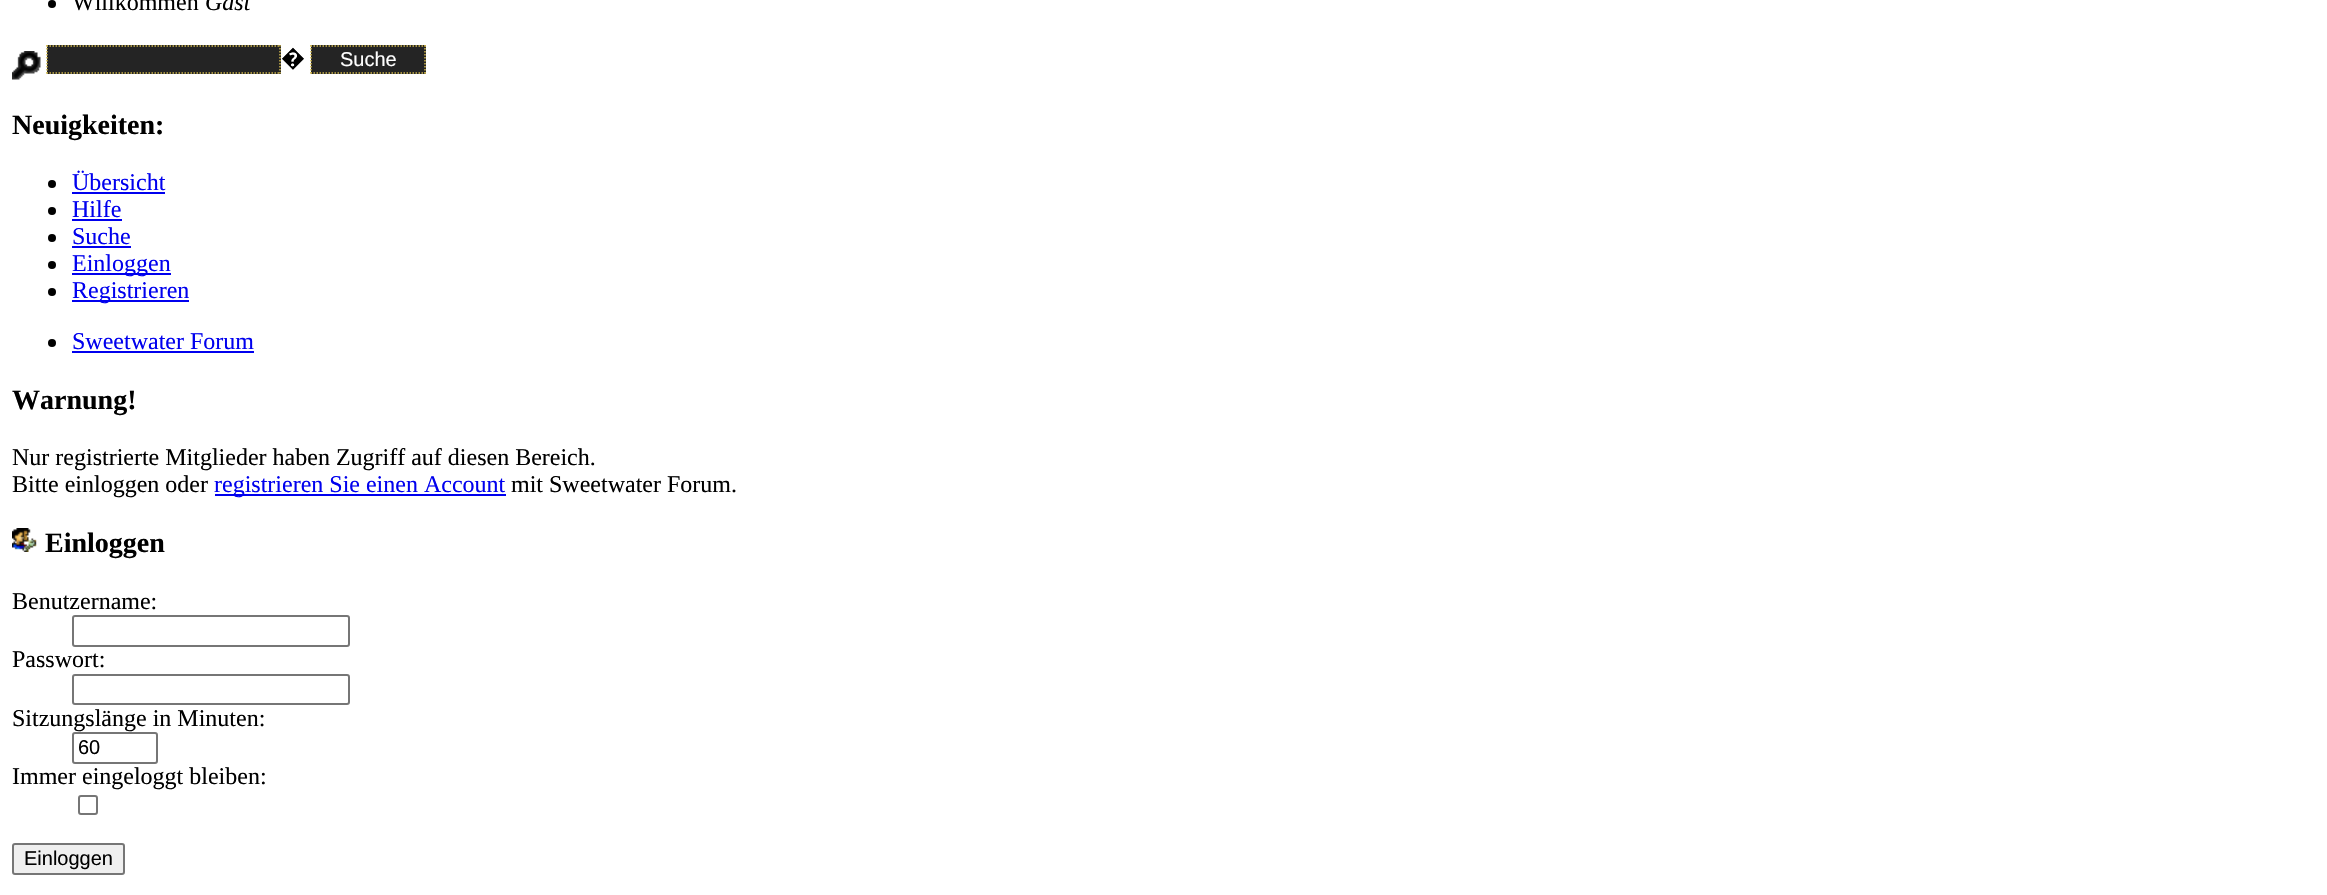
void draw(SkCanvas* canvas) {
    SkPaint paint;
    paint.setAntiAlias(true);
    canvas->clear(0xFFFFFFFF);
    paint.setColor(0xFF000000);
    canvas->drawCircle(52, 4, 4, paint);
    SkFont font1(fontMgr->matchFamilyStyle("Liberation Serif", SkFontStyle::Normal()), 24);
    font1.setSubpixel(true);
    canvas->drawString("Willkommen", 72, 10, font1, paint);
    SkFont font2(fontMgr->matchFamilyStyle("Liberation Serif", SkFontStyle::Italic()), 24);
    font2.setSubpixel(true);
    canvas->drawString("Gast", 205, 10, font2, paint);
    canvas->drawImageRect(SkImages::DeferredFromEncodedData(SkData::MakeFromFileName("img1.png")), SkRect::MakeXYWH(12, 51, 29, 29), SkSamplingOptions());
    paint.setColor(0xFF242424);
    canvas->drawRect(SkRect::MakeXYWH(47, 45, 234, 29), paint);
    paint.setStyle(SkPaint::kStroke_Style);
    paint.setStrokeWidth(1.5f);
    paint.setColor(0xFFCEB54B);
    paint.setPathEffect(SkDashPathEffect::Make({{1.5f, 1.5f}}, 0));
    canvas->drawPath(SkPathBuilder().moveTo(46.5f, 46).lineTo(280.5f, 46).detach(), paint);
    paint.setPathEffect(nullptr);
    paint.setPathEffect(SkDashPathEffect::Make({{1.5f, 1.5f}}, 0));
    canvas->drawPath(SkPathBuilder().moveTo(280, 45).lineTo(280, 73.5f).detach(), paint);
    paint.setPathEffect(nullptr);
    paint.setPathEffect(SkDashPathEffect::Make({{1.5f, 1.5f}}, 0));
    canvas->drawPath(SkPathBuilder().moveTo(46.5f, 73).lineTo(280.5f, 73).detach(), paint);
    paint.setPathEffect(nullptr);
    paint.setPathEffect(SkDashPathEffect::Make({{1.5f, 1.5f}}, 0));
    canvas->drawPath(SkPathBuilder().moveTo(47, 45).lineTo(47, 73.5f).detach(), paint);
    paint.setPathEffect(nullptr);
    SkFont font3(fontMgr->matchFamilyStyle("Noto Sans", SkFontStyle::Normal()), 24);
    font3.setSubpixel(true);
    paint.setStyle(SkPaint::kFill_Style);
    paint.setColor(0xFF000000);
    canvas->drawString("�", 281, 66, font3, paint);
    paint.setColor(0xFF242424);
    canvas->drawRect(SkRect::MakeXYWH(311, 45, 115, 29), paint);
    paint.setStyle(SkPaint::kStroke_Style);
    paint.setColor(0xFFCEB54B);
    paint.setPathEffect(SkDashPathEffect::Make({{1.5f, 1.5f}}, 0));
    canvas->drawPath(SkPathBuilder().moveTo(310.5f, 46).lineTo(426, 46).detach(), paint);
    paint.setPathEffect(nullptr);
    paint.setPathEffect(SkDashPathEffect::Make({{1.5f, 1.5f}}, 0));
    canvas->drawPath(SkPathBuilder().moveTo(425, 45).lineTo(425, 73.5f).detach(), paint);
    paint.setPathEffect(nullptr);
    paint.setPathEffect(SkDashPathEffect::Make({{1.5f, 1.5f}}, 0));
    canvas->drawPath(SkPathBuilder().moveTo(310.5f, 73).lineTo(426, 73).detach(), paint);
    paint.setPathEffect(nullptr);
    paint.setPathEffect(SkDashPathEffect::Make({{1.5f, 1.5f}}, 0));
    canvas->drawPath(SkPathBuilder().moveTo(311, 45).lineTo(311, 73.5f).detach(), paint);
    paint.setPathEffect(nullptr);
    SkFont font4(fontMgr->matchFamilyStyle("Liberation Sans", SkFontStyle::Normal()), 20);
    font4.setSubpixel(true);
    paint.setStyle(SkPaint::kFill_Style);
    paint.setColor(0xFFFFFFFF);
    canvas->drawString("Suche", 340, 66, font4, paint);
    SkFont font5(fontMgr->matchFamilyStyle("Liberation Serif", SkFontStyle::Bold()), 28);
    font5.setSubpixel(true);
    paint.setColor(0xFF000000);
    canvas->drawString("Neuigkeiten:", 12, 134, font5, paint);
    canvas->drawCircle(52, 184, 4, paint);
    paint.setColor(0xFF0000EE);
    canvas->drawString("Übersicht", 72, 190, font1, paint);
    canvas->drawRect(SkRect::MakeXYWH(72, 192, 93, 2), paint);
    paint.setColor(0xFF000000);
    canvas->drawCircle(52, 211, 4, paint);
    paint.setColor(0xFF0000EE);
    canvas->drawString("Hilfe", 72, 217, font1, paint);
    canvas->drawRect(SkRect::MakeXYWH(72, 219, 50, 2), paint);
    paint.setColor(0xFF000000);
    canvas->drawCircle(52, 238, 4, paint);
    paint.setColor(0xFF0000EE);
    canvas->drawString("Suche", 72, 244, font1, paint);
    canvas->drawRect(SkRect::MakeXYWH(72, 246, 59, 2), paint);
    paint.setColor(0xFF000000);
    canvas->drawCircle(52, 265, 4, paint);
    paint.setColor(0xFF0000EE);
    canvas->drawRect(SkRect::MakeXYWH(72, 273, 99, 2), paint);
    canvas->drawString("Einloggen", 72, 271, font1, paint);
    paint.setColor(0xFF000000);
    canvas->drawCircle(52, 292, 4, paint);
    paint.setColor(0xFF0000EE);
    canvas->drawRect(SkRect::MakeXYWH(72, 300, 117, 2), paint);
    canvas->drawString("Registrieren", 72, 298, font1, paint);
    paint.setColor(0xFF000000);
    canvas->drawCircle(52, 343, 4, paint);
    paint.setColor(0xFF0000EE);
    canvas->drawString("Sweetwater Forum", 72, 349, font1, paint);
    canvas->drawRect(SkRect::MakeXYWH(72, 351, 182, 2), paint);
    paint.setColor(0xFF000000);
    canvas->drawString("Warnung!", 12, 409, font5, paint);
    canvas->drawString("Nur registrierte Mitglieder haben Zugriff auf diesen Bereich.", 12, 465, font1, paint);
    canvas->drawString("Bitte einloggen oder", 12, 492, font1, paint);
    paint.setColor(0xFF0000EE);
    canvas->drawRect(SkRect::MakeXYWH(215, 494, 291, 2), paint);
    canvas->drawString("registrieren Sie einen Account", 214, 492, font1, paint);
    paint.setColor(0xFF000000);
    canvas->drawString("mit Sweetwater Forum.", 511, 492, font1, paint);
    canvas->drawImageRect(SkImages::DeferredFromEncodedData(SkData::MakeFromFileName("img2.png")), SkRect::MakeXYWH(12, 528, 25, 24), SkSamplingOptions());
    canvas->drawString("Einloggen", 45, 552, font5, paint);
    canvas->drawString("Benutzername:", 12, 609, font1, paint);
    paint.setStyle(SkPaint::kStroke_Style);
    paint.setStrokeWidth(2);
    paint.setColor(0xFF767676);
    canvas->drawRoundRect(SkRect::MakeXYWH(73, 616, 276, 30), 2, 2, paint);
    paint.setStyle(SkPaint::kFill_Style);
    paint.setColor(0xFF000000);
    canvas->drawString("Passwort:", 12, 667, font1, paint);
    paint.setStyle(SkPaint::kStroke_Style);
    paint.setColor(0xFF767676);
    canvas->drawRoundRect(SkRect::MakeXYWH(73, 675, 276, 29), 2, 2, paint);
    paint.setStyle(SkPaint::kFill_Style);
    paint.setColor(0xFF000000);
    canvas->drawString("Sitzungslänge in Minuten:", 12, 726, font1, paint);
    paint.setStyle(SkPaint::kStroke_Style);
    paint.setColor(0xFF767676);
    canvas->drawRoundRect(SkRect::MakeXYWH(73, 733, 84, 30), 2, 2, paint);
    paint.setStyle(SkPaint::kFill_Style);
    paint.setColor(0xFF000000);
    canvas->drawString("60", 78, 754, font4, paint);
    canvas->drawString("Immer eingeloggt bleiben:", 12, 784, font1, paint);
    paint.setStyle(SkPaint::kStroke_Style);
    paint.setColor(0xFF767676);
    canvas->drawRoundRect(SkRect::MakeXYWH(79, 796, 18, 18), 2, 2, paint);
    paint.setStyle(SkPaint::kFill_Style);
    paint.setColor(0xFFEFEFEF);
    canvas->drawRoundRect(SkRect::MakeXYWH(13, 844, 111, 30), 2, 2, paint);
    paint.setStyle(SkPaint::kStroke_Style);
    paint.setColor(0xFF767676);
    canvas->drawRoundRect(SkRect::MakeXYWH(13, 844, 111, 30), 2, 2, paint);
    paint.setStyle(SkPaint::kFill_Style);
    paint.setColor(0xFF000000);
    canvas->drawString("Einloggen", 24, 865, font4, paint);
}
